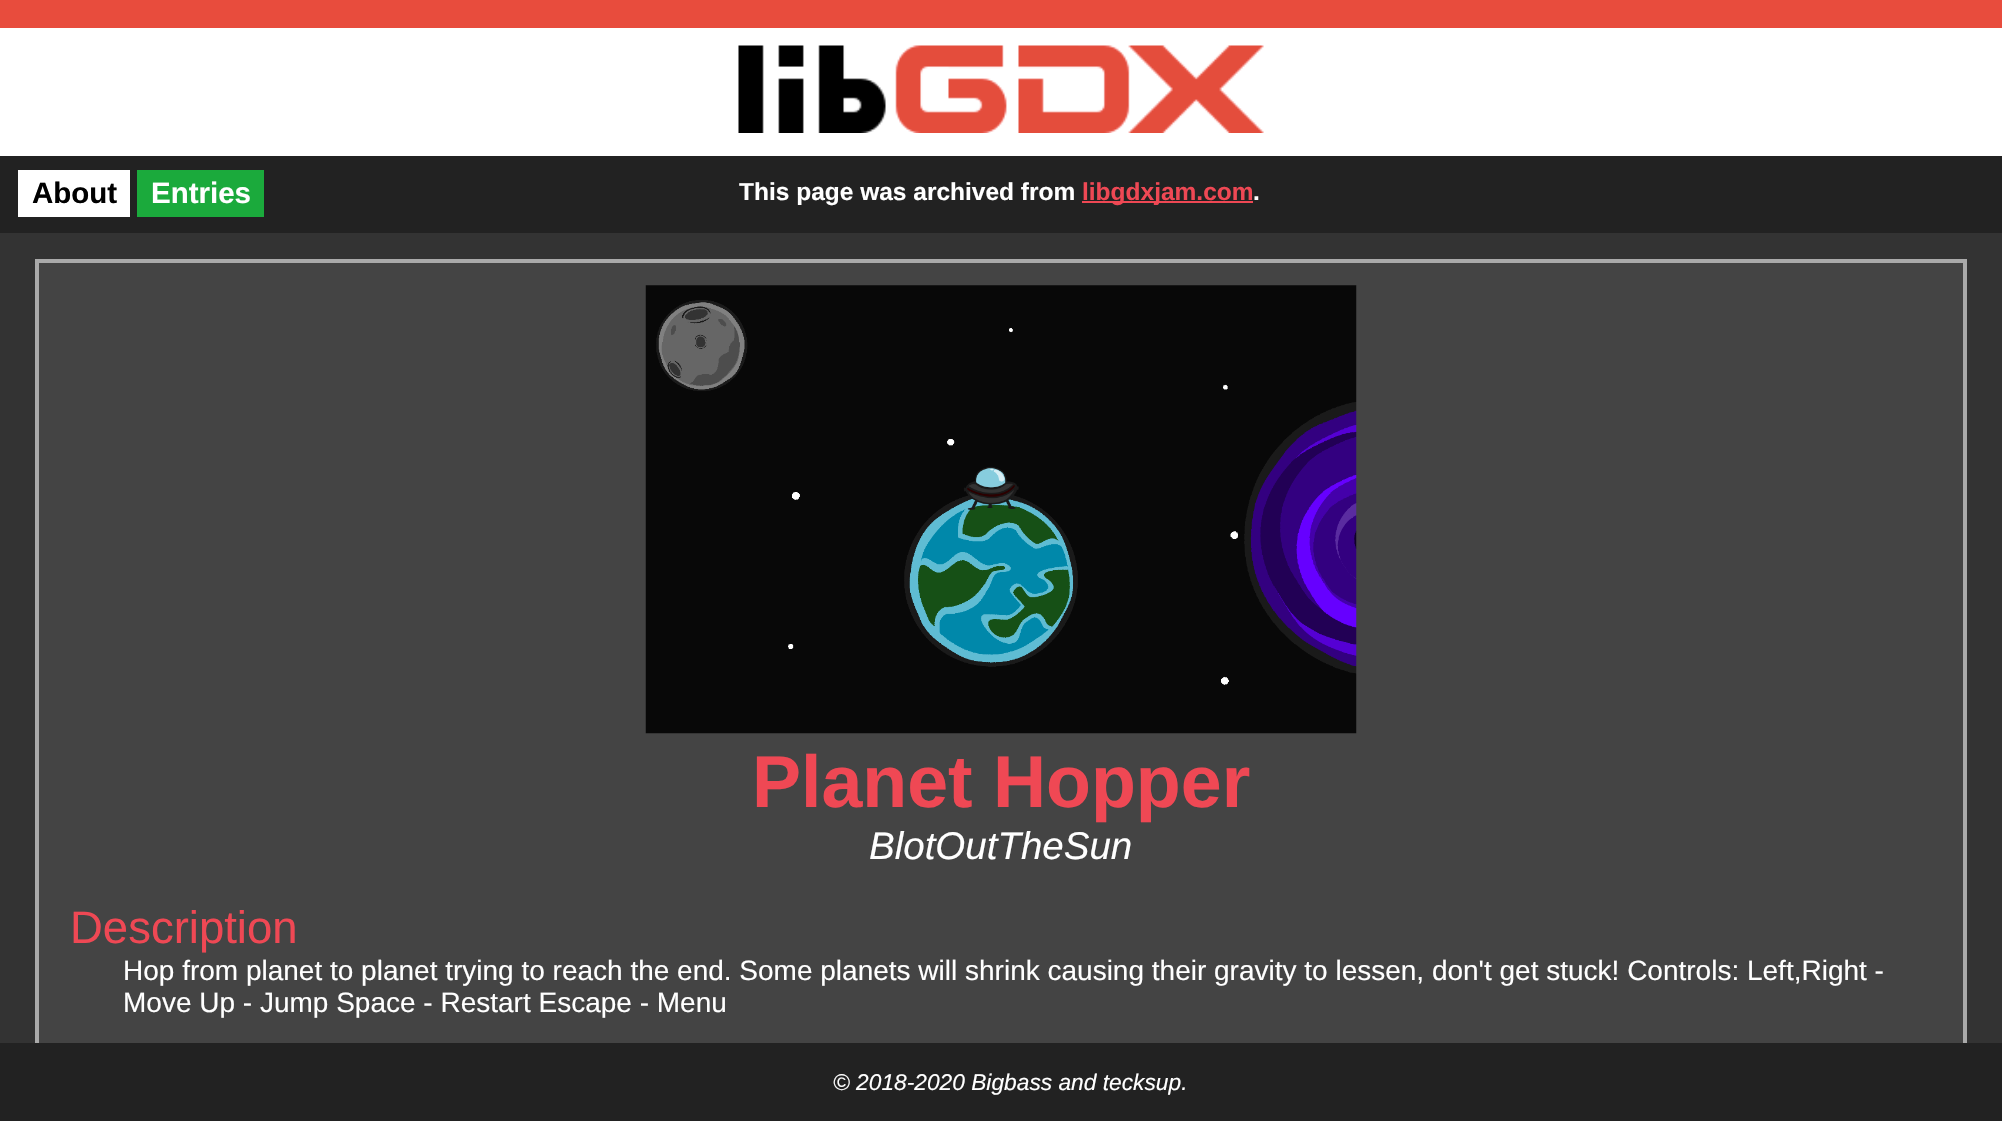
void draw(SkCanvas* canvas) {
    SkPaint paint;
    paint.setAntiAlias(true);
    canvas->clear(0xFF333333);
    paint.setColor(0xFFFFFFFF);
    canvas->drawRect(SkRect::MakeXYWH(0, 28, 2002, 128), paint);
    paint.setColor(0xFFE84C3D);
    canvas->drawRect(SkRect::MakeXYWH(0, 0, 2002, 28), paint);
    canvas->drawImageRect(SkImages::DeferredFromEncodedData(SkData::MakeFromFileName("img1.png")), SkRect::MakeXYWH(738, 45, 526, 88), SkSamplingOptions());
    paint.setColor(0xFF222222);
    canvas->drawRect(SkRect::MakeXYWH(0, 156, 2002, 77), paint);
    paint.setColor(0xFFFFFFFF);
    canvas->drawRect(SkRect::MakeXYWH(18, 170, 112, 47), paint);
    SkFont font1(fontMgr->matchFamilyStyle("Liberation Sans", SkFontStyle::Bold()), 29.5f);
    font1.setSubpixel(true);
    paint.setColor(0xFF000000);
    canvas->drawString("About", 32, 203, font1, paint);
    paint.setColor(0xFF1BAA3C);
    canvas->drawRect(SkRect::MakeXYWH(137, 170, 127, 47), paint);
    paint.setColor(0xFFFFFFFF);
    canvas->drawString("Entries", 151, 203, font1, paint);
    SkFont font2(fontMgr->matchFamilyStyle("Liberation Sans", SkFontStyle::Bold()), 24.5f);
    font2.setSubpixel(true);
    canvas->drawString("This page was archived from", 739, 200, font2, paint);
    paint.setColor(0xFFEF4854);
    canvas->drawRect(SkRect::MakeXYWH(1082, 201, 171, 2), paint);
    canvas->drawString("libgdxjam.com", 1082, 200, font2, paint);
    paint.setColor(0xFFFFFFFF);
    canvas->drawString(".", 1253, 200, font2, paint);
    paint.setColor(0xFF444444);
    canvas->drawRect(SkRect::MakeXYWH(39, 263, 1924, 780), paint);
    paint.setColor(0xFF222222);
    canvas->drawRect(SkRect::MakeXYWH(0, 1043, 2002, 78), paint);
    canvas->save();
    canvas->clipRect(SkRect::MakeXYWH(0, 233, 2002, 810));
    paint.setStyle(SkPaint::kStroke_Style);
    paint.setStrokeWidth(4);
    paint.setColor(0xFFAAAAAA);
    canvas->drawPath(SkPathBuilder().moveTo(37, 261).lineTo(1965, 261).lineTo(1965, 1065).cubicTo(1965, 1112.5f, 1926.5f, 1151, 1879, 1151).lineTo(123, 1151).cubicTo(75.5f, 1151, 37, 1112.5f, 37, 1065).close().detach(), paint);
    canvas->restore();
    canvas->drawImageRect(SkImages::DeferredFromEncodedData(SkData::MakeFromFileName("img2.png")), SkRect::MakeXYWH(645, 285, 712, 449), SkSamplingOptions());
    SkFont font3(fontMgr->matchFamilyStyle("Liberation Sans", SkFontStyle::Bold()), 73.5f);
    font3.setSubpixel(true);
    paint.setStyle(SkPaint::kFill_Style);
    paint.setColor(0xFFEF4854);
    canvas->drawString("Planet Hopper", 752, 807, font3, paint);
    SkFont font4(fontMgr->matchFamilyStyle("Liberation Sans", SkFontStyle::Italic()), 38.5f);
    font4.setSubpixel(true);
    paint.setColor(0xFFFFFFFF);
    canvas->drawString("BlotOutTheSun", 869, 859, font4, paint);
    SkFont font5(fontMgr->matchFamilyStyle("Liberation Sans", SkFontStyle::Normal()), 45.5f);
    font5.setSubpixel(true);
    paint.setColor(0xFFEF4854);
    canvas->drawString("Description", 70, 943, font5, paint);
    SkFont font6(fontMgr->matchFamilyStyle("Liberation Sans", SkFontStyle::Normal()), 28);
    font6.setSubpixel(true);
    paint.setColor(0xFFFFFFFF);
    canvas->drawString("Hop from planet to planet trying to reach the end. Some planets will shrink causing their gravity to lessen, don't get stuck! Controls: Left,Right -", 123, 980, font6, paint);
    canvas->drawString("Move Up - Jump Space - Restart Escape - Menu", 123, 1012, font6, paint);
    SkFont font7(fontMgr->matchFamilyStyle("Liberation Sans", SkFontStyle::Italic()), 22.75f);
    font7.setSubpixel(true);
    canvas->drawString("© 2018-2020 Bigbass and tecksup.", 833, 1090, font7, paint);
}
